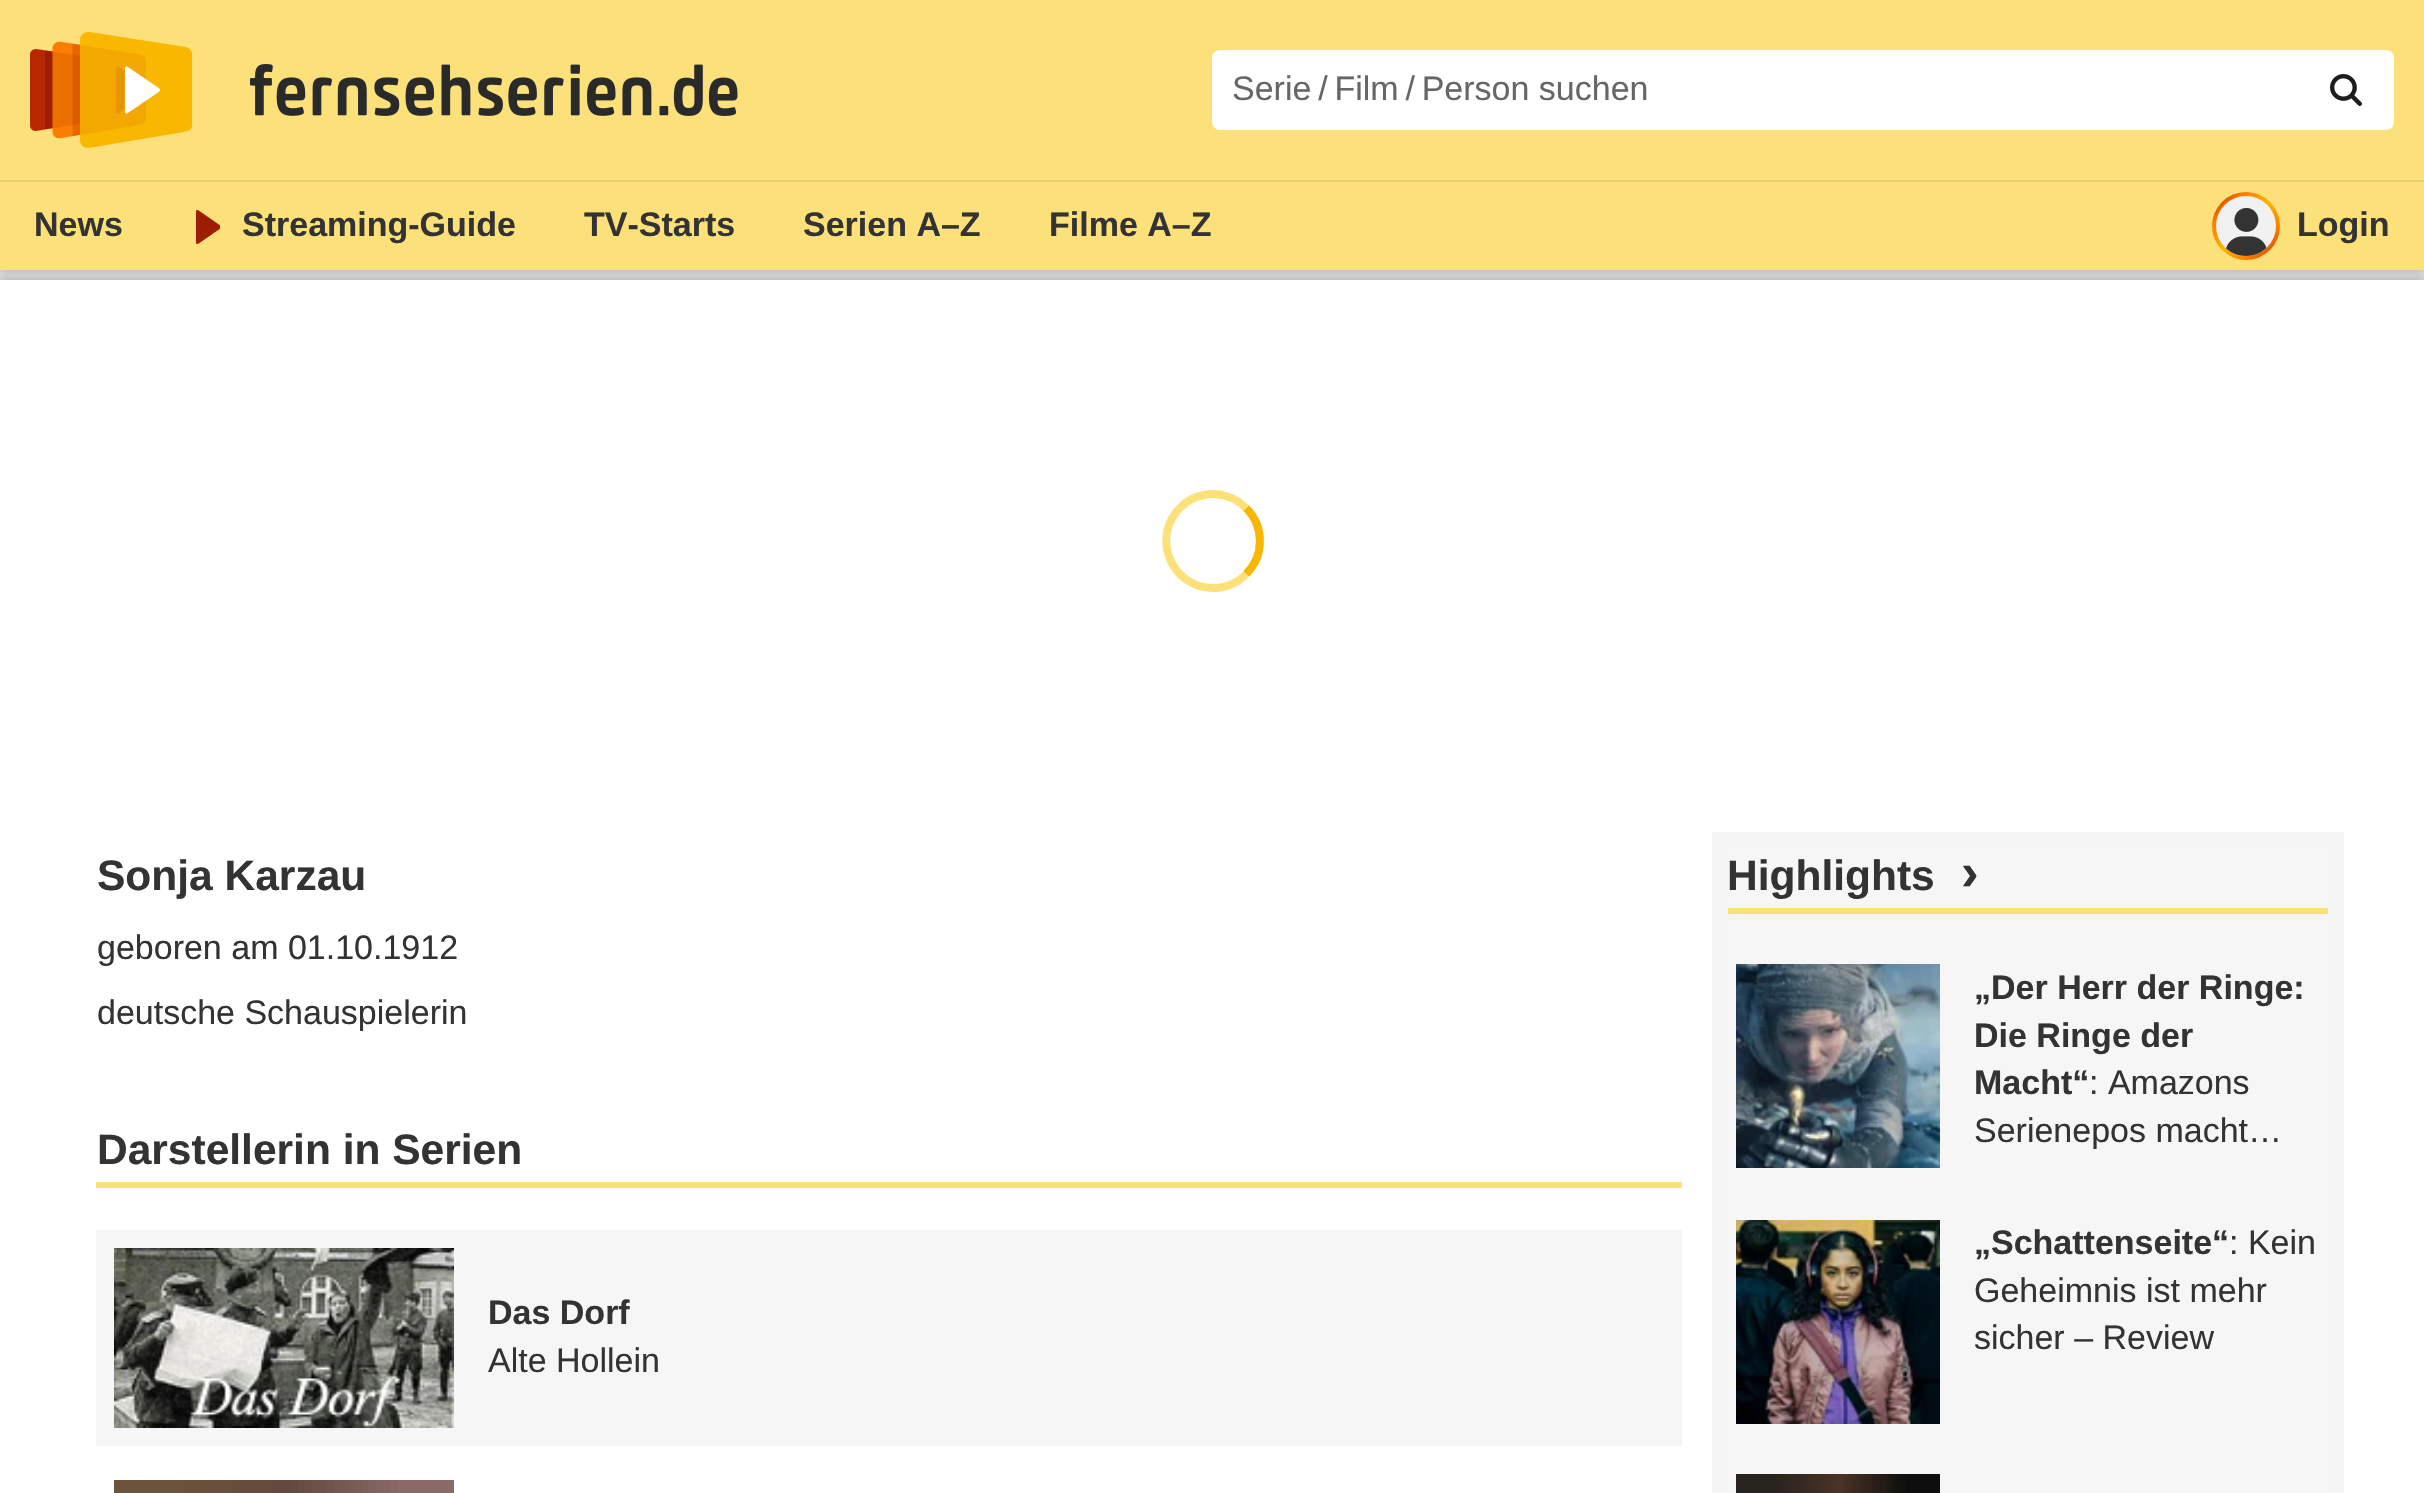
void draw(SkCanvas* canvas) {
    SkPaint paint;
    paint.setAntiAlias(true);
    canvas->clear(0xFFDCDCDC);
    paint.setColor(0xFFFCE17A);
    canvas->drawRect(SkRect::MakeXYWH(0, 0, 2424, 180), paint);
    canvas->drawImageRect(SkImages::DeferredFromEncodedData(SkData::MakeFromFileName("img1.png")), SkRect::MakeXYWH(30, 32, 162, 116), SkSamplingOptions());
    canvas->drawImageRect(SkImages::DeferredFromEncodedData(SkData::MakeFromFileName("img2.png")), SkRect::MakeXYWH(250, 64, 488, 52), SkSamplingOptions());
    paint.setColor(0xFFFFFFFF);
    canvas->drawRoundRect(SkRect::MakeXYWH(1212, 50, 1182, 80), 8, 8, paint);
    SkFont font1(fontMgr->matchFamilyStyle("Liberation Sans", SkFontStyle::Normal()), 34);
    font1.setSubpixel(true);
    paint.setColor(0xFF666666);
    canvas->drawString("Serie / Film / Person suchen", 1232, 100, font1, paint);
    canvas->drawImageRect(SkImages::DeferredFromEncodedData(SkData::MakeFromFileName("img3.png")), SkRect::MakeXYWH(2330, 74, 32, 32), SkSamplingOptions());
    paint.setColor(0x54333333);
    paint.setMaskFilter(SkMaskFilter::MakeBlur(kNormal_SkBlurStyle, 5));
    canvas->drawRect(SkRect::MakeXYWH(0, 260, 2424, 10), paint);
    paint.setMaskFilter(nullptr);
    paint.setMaskFilter(SkMaskFilter::MakeBlur(kNormal_SkBlurStyle, 5));
    canvas->drawRect(SkRect::MakeXYWH(0, 280, 2424, 10), paint);
    paint.setMaskFilter(nullptr);
    paint.setColor(0xFFFCE17A);
    canvas->drawRect(SkRect::MakeXYWH(0, 182, 2424, 88), paint);
    paint.setColor(0xFFE8CD72);
    canvas->drawRect(SkRect::MakeXYWH(0, 180, 2424, 2), paint);
    SkFont font2(fontMgr->matchFamilyStyle("Liberation Sans", SkFontStyle::Bold()), 34);
    font2.setSubpixel(true);
    paint.setColor(0xFF333333);
    canvas->drawString("News", 34, 236, font2, paint);
    canvas->save();
    canvas->clipRect(SkRect::MakeXYWH(196, 210, 24, 34));
    paint.setColor(0xFF9E1D00);
    canvas->drawPath(SkPathBuilder().moveTo(196, 211.5f).lineTo(196, 242.5f).cubicTo(196, 243.5f, 197, 244.5f, 198, 244).lineTo(220.5f, 228.5f).cubicTo(221.5f, 227.5f, 221.5f, 226.5f, 220.5f, 225.5f).lineTo(198, 210).cubicTo(197, 209.5f, 196, 210.5f, 196, 211.5f).close().detach(), paint);
    canvas->restore();
    paint.setColor(0xFF333333);
    canvas->drawString("Streaming-Guide", 242, 236, font2, paint);
    canvas->drawString("TV-Starts", 584, 236, font2, paint);
    canvas->drawString("Serien A–Z", 803, 236, font2, paint);
    canvas->drawString("Filme A–Z", 1049, 236, font2, paint);
    {
        const SkColor colors[] = {0xFFB82800, 0xFFFC7D00, 0xFFFAB700, 0xFFFC7D00, 0xFFB82800};
        const float stops[] = {0, 0.25f, 0.5f, 0.75f, 1};
        const SkPoint ends[] = {{2212, 192}, {2280, 260}};
        paint.setShader(SkGradientShader::MakeLinear(ends, colors, stops, 5, SkTileMode::kClamp));
        paint.setAlpha(255);
    }
    canvas->drawCircle(2246, 226, 34, paint);
    paint.setShader(nullptr);
    paint.setColor(0xFFF1F1F1);
    canvas->drawCircle(2246, 226, 30, paint);
    canvas->drawImageRect(SkImages::DeferredFromEncodedData(SkData::MakeFromFileName("img4.png")), SkRect::MakeXYWH(2226, 207, 41, 49), SkSamplingOptions());
    paint.setColor(0xFF333333);
    canvas->drawString("Login", 2297, 236, font2, paint);
    paint.setColor(0xFFFFFFFF);
    canvas->drawRect(SkRect::MakeXYWH(0, 280, 2424, 1213), paint);
    paint.setStyle(SkPaint::kStroke_Style);
    paint.setStrokeWidth(8);
    paint.setColor(0xFFFAB700);
    canvas->drawPath(SkPathBuilder().moveTo(1246, 508).cubicTo(1264.5f, 526, 1264.5f, 556, 1246, 574).detach(), paint);
    paint.setColor(0xFFFCE17A);
    canvas->drawPath(SkPathBuilder().moveTo(1246, 574).cubicTo(1237.5f, 583, 1225.5f, 588, 1213, 588).cubicTo(1171.5f, 588, 1150.5f, 537, 1180, 508).cubicTo(1186.5f, 501, 1194.5f, 496.5f, 1204, 495).cubicTo(1219, 492, 1235, 497, 1246, 508).detach(), paint);
    SkFont font3(fontMgr->matchFamilyStyle("Liberation Sans", SkFontStyle::Bold()), 42.5f);
    font3.setSubpixel(true);
    paint.setStyle(SkPaint::kFill_Style);
    paint.setColor(0xFF333333);
    canvas->drawString("Sonja Karzau", 97, 890, font3, paint);
    canvas->drawString("geboren am 01.10.1912", 97, 959, font1, paint);
    canvas->drawString("deutsche Schauspielerin", 97, 1024, font1, paint);
    paint.setColor(0xFFFCE17A);
    canvas->drawRect(SkRect::MakeXYWH(96, 1182, 1586, 6), paint);
    paint.setColor(0xFF333333);
    canvas->drawString("Darstellerin in Serien", 97, 1164, font3, paint);
    paint.setColor(0xFFF6F6F6);
    canvas->drawRect(SkRect::MakeXYWH(96, 1230, 1586, 216), paint);
    canvas->drawImageRect(SkImages::DeferredFromEncodedData(SkData::MakeFromFileName("img5.png")), SkRect::MakeXYWH(114, 1248, 340, 180), SkSamplingOptions());
    paint.setColor(0xFF333333);
    canvas->drawString("Das Dorf", 488, 1324, font2, paint);
    canvas->drawString("Alte Hollein", 488, 1372, font1, paint);
    canvas->drawImageRect(SkImages::DeferredFromEncodedData(SkData::MakeFromFileName("img6.png")), SkRect::MakeXYWH(114, 1480, 340, 13), SkSamplingOptions());
    paint.setColor(0xFFF6F6F6);
    canvas->drawRect(SkRect::MakeXYWH(1720, 840, 616, 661), paint);
    paint.setStyle(SkPaint::kStroke_Style);
    paint.setStrokeWidth(16);
    paint.setColor(0xFFF5F5F5);
    canvas->drawRect(SkRect::MakeXYWH(1720, 840, 616, 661), paint);
    paint.setStyle(SkPaint::kFill_Style);
    paint.setColor(0xFFFCE17A);
    canvas->drawRect(SkRect::MakeXYWH(1728, 908, 600, 6), paint);
    paint.setColor(0xFF333333);
    canvas->drawString("Highlights", 1727, 890, font3, paint);
    SkFont font4(fontMgr->matchFamilyStyle("Liberation Sans", SkFontStyle::Bold()), 53);
    font4.setSubpixel(true);
    canvas->drawString("›", 1961, 890, font4, paint);
    canvas->drawImageRect(SkImages::DeferredFromEncodedData(SkData::MakeFromFileName("img7.png")), SkRect::MakeXYWH(1736, 964, 204, 204), SkSamplingOptions());
    canvas->drawString("„Der Herr der Ringe:", 1974, 999, font2, paint);
    canvas->drawString("Die Ringe der", 1974, 1047, font2, paint);
    canvas->drawString("Macht“", 1974, 1094, font2, paint);
    canvas->drawString(": Amazons", 2089, 1094, font1, paint);
    canvas->drawString("Serienepos macht…", 1974, 1142, font1, paint);
    canvas->drawImageRect(SkImages::DeferredFromEncodedData(SkData::MakeFromFileName("img8.png")), SkRect::MakeXYWH(1736, 1220, 204, 204), SkSamplingOptions());
    canvas->drawString("„Schattenseite“", 1974, 1254, font2, paint);
    canvas->drawString(": Kein", 2229, 1254, font1, paint);
    canvas->drawString("Geheimnis ist mehr", 1974, 1302, font1, paint);
    canvas->drawString("sicher – Review", 1974, 1349, font1, paint);
    canvas->drawImageRect(SkImages::DeferredFromEncodedData(SkData::MakeFromFileName("img9.png")), SkRect::MakeXYWH(1736, 1474, 204, 19), SkSamplingOptions());
}
